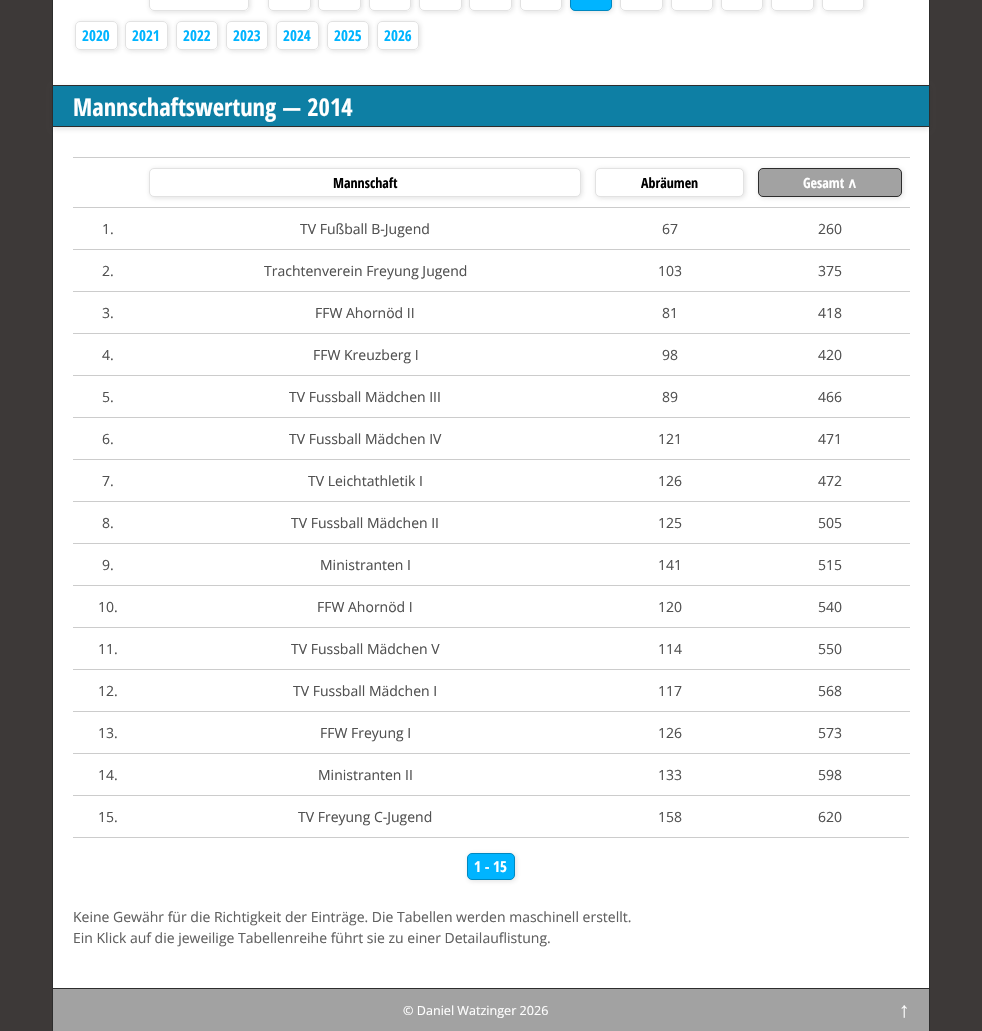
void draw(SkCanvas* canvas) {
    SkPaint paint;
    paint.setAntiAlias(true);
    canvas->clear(0xFF3D3938);
    paint.setColor(0xFFFFFFFF);
    canvas->drawRect(SkRect::MakeXYWH(53, 0, 876, 988), paint);
    paint.setColor(0xFF2D2D2D);
    canvas->drawRect(SkRect::MakeXYWH(929, 0, 1, 1031), paint);
    canvas->drawRect(SkRect::MakeXYWH(52, 0, 1, 1031), paint);
    canvas->save();
    canvas->clipPath(SkPathBuilder(SkPathFillType::kEvenOdd).moveTo(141, 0).lineTo(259, 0).lineTo(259, 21).lineTo(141, 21).close().moveTo(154, -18).lineTo(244, -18).cubicTo(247, -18, 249, -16, 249, -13).lineTo(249, 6).cubicTo(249, 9, 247, 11, 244, 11).lineTo(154, 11).cubicTo(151, 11, 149, 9, 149, 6).lineTo(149, -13).cubicTo(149, -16, 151, -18, 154, -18).close().detach(), true);
    paint.setColor(0x26323232);
    paint.setMaskFilter(SkMaskFilter::MakeBlur(kNormal_SkBlurStyle, 2.5f));
    canvas->drawRoundRect(SkRect::MakeXYWH(150, -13, 100, 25), 5, 5, paint);
    paint.setMaskFilter(nullptr);
    canvas->restore();
    paint.setStyle(SkPaint::kStroke_Style);
    paint.setStrokeWidth(1);
    paint.setColor(0xFFE2E2E2);
    canvas->drawRoundRect(SkRect::MakeXYWH(149.5f, -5.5f, 99, 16), 4.5f, 4.5f, paint);
    canvas->save();
    canvas->clipPath(SkPathBuilder(SkPathFillType::kEvenOdd).moveTo(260, 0).lineTo(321, 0).lineTo(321, 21).lineTo(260, 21).close().moveTo(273, -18).lineTo(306, -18).cubicTo(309, -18, 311, -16, 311, -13).lineTo(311, 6).cubicTo(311, 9, 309, 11, 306, 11).lineTo(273, 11).cubicTo(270, 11, 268, 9, 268, 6).lineTo(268, -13).cubicTo(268, -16, 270, -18, 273, -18).close().detach(), true);
    paint.setStyle(SkPaint::kFill_Style);
    paint.setColor(0x26323232);
    paint.setMaskFilter(SkMaskFilter::MakeBlur(kNormal_SkBlurStyle, 2.5f));
    canvas->drawRoundRect(SkRect::MakeXYWH(269, -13, 43, 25), 5, 5, paint);
    paint.setMaskFilter(nullptr);
    canvas->restore();
    paint.setStyle(SkPaint::kStroke_Style);
    paint.setColor(0xFFE2E2E2);
    canvas->drawRoundRect(SkRect::MakeXYWH(268.5f, -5.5f, 42, 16), 4.5f, 4.5f, paint);
    canvas->save();
    canvas->clipPath(SkPathBuilder(SkPathFillType::kEvenOdd).moveTo(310, 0).lineTo(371, 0).lineTo(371, 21).lineTo(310, 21).close().moveTo(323, -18).lineTo(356, -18).cubicTo(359, -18, 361, -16, 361, -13).lineTo(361, 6).cubicTo(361, 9, 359, 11, 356, 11).lineTo(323, 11).cubicTo(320, 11, 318, 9, 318, 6).lineTo(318, -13).cubicTo(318, -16, 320, -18, 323, -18).close().detach(), true);
    paint.setStyle(SkPaint::kFill_Style);
    paint.setColor(0x26323232);
    paint.setMaskFilter(SkMaskFilter::MakeBlur(kNormal_SkBlurStyle, 2.5f));
    canvas->drawRoundRect(SkRect::MakeXYWH(319, -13, 43, 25), 5, 5, paint);
    paint.setMaskFilter(nullptr);
    canvas->restore();
    paint.setStyle(SkPaint::kStroke_Style);
    paint.setColor(0xFFE2E2E2);
    canvas->drawRoundRect(SkRect::MakeXYWH(318.5f, -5.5f, 42, 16), 4.5f, 4.5f, paint);
    canvas->save();
    canvas->clipPath(SkPathBuilder(SkPathFillType::kEvenOdd).moveTo(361, 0).lineTo(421, 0).lineTo(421, 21).lineTo(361, 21).close().moveTo(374, -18).lineTo(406, -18).cubicTo(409, -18, 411, -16, 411, -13).lineTo(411, 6).cubicTo(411, 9, 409, 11, 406, 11).lineTo(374, 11).cubicTo(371, 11, 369, 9, 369, 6).lineTo(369, -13).cubicTo(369, -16, 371, -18, 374, -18).close().detach(), true);
    paint.setStyle(SkPaint::kFill_Style);
    paint.setColor(0x26323232);
    paint.setMaskFilter(SkMaskFilter::MakeBlur(kNormal_SkBlurStyle, 2.5f));
    canvas->drawRoundRect(SkRect::MakeXYWH(370, -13, 42, 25), 5, 5, paint);
    paint.setMaskFilter(nullptr);
    canvas->restore();
    paint.setStyle(SkPaint::kStroke_Style);
    paint.setColor(0xFFE2E2E2);
    canvas->drawRoundRect(SkRect::MakeXYWH(369.5f, -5.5f, 41, 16), 4.5f, 4.5f, paint);
    canvas->save();
    canvas->clipPath(SkPathBuilder(SkPathFillType::kEvenOdd).moveTo(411, 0).lineTo(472, 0).lineTo(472, 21).lineTo(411, 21).close().moveTo(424, -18).lineTo(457, -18).cubicTo(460, -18, 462, -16, 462, -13).lineTo(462, 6).cubicTo(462, 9, 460, 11, 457, 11).lineTo(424, 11).cubicTo(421, 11, 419, 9, 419, 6).lineTo(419, -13).cubicTo(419, -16, 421, -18, 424, -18).close().detach(), true);
    paint.setStyle(SkPaint::kFill_Style);
    paint.setColor(0x26323232);
    paint.setMaskFilter(SkMaskFilter::MakeBlur(kNormal_SkBlurStyle, 2.5f));
    canvas->drawRoundRect(SkRect::MakeXYWH(420, -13, 43, 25), 5, 5, paint);
    paint.setMaskFilter(nullptr);
    canvas->restore();
    paint.setStyle(SkPaint::kStroke_Style);
    paint.setColor(0xFFE2E2E2);
    canvas->drawRoundRect(SkRect::MakeXYWH(419.5f, -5.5f, 42, 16), 4.5f, 4.5f, paint);
    canvas->save();
    canvas->clipPath(SkPathBuilder(SkPathFillType::kEvenOdd).moveTo(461, 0).lineTo(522, 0).lineTo(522, 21).lineTo(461, 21).close().moveTo(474, -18).lineTo(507, -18).cubicTo(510, -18, 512, -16, 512, -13).lineTo(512, 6).cubicTo(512, 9, 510, 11, 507, 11).lineTo(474, 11).cubicTo(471, 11, 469, 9, 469, 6).lineTo(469, -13).cubicTo(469, -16, 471, -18, 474, -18).close().detach(), true);
    paint.setStyle(SkPaint::kFill_Style);
    paint.setColor(0x26323232);
    paint.setMaskFilter(SkMaskFilter::MakeBlur(kNormal_SkBlurStyle, 2.5f));
    canvas->drawRoundRect(SkRect::MakeXYWH(470, -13, 43, 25), 5, 5, paint);
    paint.setMaskFilter(nullptr);
    canvas->restore();
    paint.setStyle(SkPaint::kStroke_Style);
    paint.setColor(0xFFE2E2E2);
    canvas->drawRoundRect(SkRect::MakeXYWH(469.5f, -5.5f, 42, 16), 4.5f, 4.5f, paint);
    canvas->save();
    canvas->clipPath(SkPathBuilder(SkPathFillType::kEvenOdd).moveTo(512, 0).lineTo(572, 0).lineTo(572, 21).lineTo(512, 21).close().moveTo(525, -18).lineTo(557, -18).cubicTo(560, -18, 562, -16, 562, -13).lineTo(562, 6).cubicTo(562, 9, 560, 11, 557, 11).lineTo(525, 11).cubicTo(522, 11, 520, 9, 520, 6).lineTo(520, -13).cubicTo(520, -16, 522, -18, 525, -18).close().detach(), true);
    paint.setStyle(SkPaint::kFill_Style);
    paint.setColor(0x26323232);
    paint.setMaskFilter(SkMaskFilter::MakeBlur(kNormal_SkBlurStyle, 2.5f));
    canvas->drawRoundRect(SkRect::MakeXYWH(521, -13, 42, 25), 5, 5, paint);
    paint.setMaskFilter(nullptr);
    canvas->restore();
    paint.setStyle(SkPaint::kStroke_Style);
    paint.setColor(0xFFE2E2E2);
    canvas->drawRoundRect(SkRect::MakeXYWH(520.5f, -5.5f, 41, 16), 4.5f, 4.5f, paint);
    paint.setStyle(SkPaint::kFill_Style);
    paint.setColor(0x26323232);
    paint.setMaskFilter(SkMaskFilter::MakeBlur(kNormal_SkBlurStyle, 2.5f));
    canvas->drawRoundRect(SkRect::MakeXYWH(571, -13, 42, 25), 5, 5, paint);
    paint.setMaskFilter(nullptr);
    paint.setColor(0xFF00B4FF);
    canvas->drawRoundRect(SkRect::MakeXYWH(570.5f, -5.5f, 41, 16), 4.5f, 4.5f, paint);
    paint.setStyle(SkPaint::kStroke_Style);
    paint.setColor(0xFF0088C0);
    canvas->drawRoundRect(SkRect::MakeXYWH(570.5f, -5.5f, 41, 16), 4.5f, 4.5f, paint);
    canvas->save();
    canvas->clipPath(SkPathBuilder(SkPathFillType::kEvenOdd).moveTo(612, 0).lineTo(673, 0).lineTo(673, 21).lineTo(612, 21).close().moveTo(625, -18).lineTo(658, -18).cubicTo(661, -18, 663, -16, 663, -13).lineTo(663, 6).cubicTo(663, 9, 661, 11, 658, 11).lineTo(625, 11).cubicTo(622, 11, 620, 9, 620, 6).lineTo(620, -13).cubicTo(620, -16, 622, -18, 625, -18).close().detach(), true);
    paint.setStyle(SkPaint::kFill_Style);
    paint.setColor(0x26323232);
    paint.setMaskFilter(SkMaskFilter::MakeBlur(kNormal_SkBlurStyle, 2.5f));
    canvas->drawRoundRect(SkRect::MakeXYWH(621, -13, 43, 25), 5, 5, paint);
    paint.setMaskFilter(nullptr);
    canvas->restore();
    paint.setStyle(SkPaint::kStroke_Style);
    paint.setColor(0xFFE2E2E2);
    canvas->drawRoundRect(SkRect::MakeXYWH(620.5f, -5.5f, 42, 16), 4.5f, 4.5f, paint);
    canvas->save();
    canvas->clipPath(SkPathBuilder(SkPathFillType::kEvenOdd).moveTo(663, 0).lineTo(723, 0).lineTo(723, 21).lineTo(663, 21).close().moveTo(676, -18).lineTo(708, -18).cubicTo(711, -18, 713, -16, 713, -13).lineTo(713, 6).cubicTo(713, 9, 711, 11, 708, 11).lineTo(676, 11).cubicTo(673, 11, 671, 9, 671, 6).lineTo(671, -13).cubicTo(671, -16, 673, -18, 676, -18).close().detach(), true);
    paint.setStyle(SkPaint::kFill_Style);
    paint.setColor(0x26323232);
    paint.setMaskFilter(SkMaskFilter::MakeBlur(kNormal_SkBlurStyle, 2.5f));
    canvas->drawRoundRect(SkRect::MakeXYWH(672, -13, 42, 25), 5, 5, paint);
    paint.setMaskFilter(nullptr);
    canvas->restore();
    paint.setStyle(SkPaint::kStroke_Style);
    paint.setColor(0xFFE2E2E2);
    canvas->drawRoundRect(SkRect::MakeXYWH(671.5f, -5.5f, 41, 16), 4.5f, 4.5f, paint);
    canvas->save();
    canvas->clipPath(SkPathBuilder(SkPathFillType::kEvenOdd).moveTo(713, 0).lineTo(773, 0).lineTo(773, 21).lineTo(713, 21).close().moveTo(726, -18).lineTo(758, -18).cubicTo(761, -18, 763, -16, 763, -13).lineTo(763, 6).cubicTo(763, 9, 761, 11, 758, 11).lineTo(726, 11).cubicTo(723, 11, 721, 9, 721, 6).lineTo(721, -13).cubicTo(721, -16, 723, -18, 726, -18).close().detach(), true);
    paint.setStyle(SkPaint::kFill_Style);
    paint.setColor(0x26323232);
    paint.setMaskFilter(SkMaskFilter::MakeBlur(kNormal_SkBlurStyle, 2.5f));
    canvas->drawRoundRect(SkRect::MakeXYWH(722, -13, 42, 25), 5, 5, paint);
    paint.setMaskFilter(nullptr);
    canvas->restore();
    paint.setStyle(SkPaint::kStroke_Style);
    paint.setColor(0xFFE2E2E2);
    canvas->drawRoundRect(SkRect::MakeXYWH(721.5f, -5.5f, 41, 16), 4.5f, 4.5f, paint);
    canvas->save();
    canvas->clipPath(SkPathBuilder(SkPathFillType::kEvenOdd).moveTo(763, 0).lineTo(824, 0).lineTo(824, 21).lineTo(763, 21).close().moveTo(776, -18).lineTo(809, -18).cubicTo(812, -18, 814, -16, 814, -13).lineTo(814, 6).cubicTo(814, 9, 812, 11, 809, 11).lineTo(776, 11).cubicTo(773, 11, 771, 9, 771, 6).lineTo(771, -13).cubicTo(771, -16, 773, -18, 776, -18).close().detach(), true);
    paint.setStyle(SkPaint::kFill_Style);
    paint.setColor(0x26323232);
    paint.setMaskFilter(SkMaskFilter::MakeBlur(kNormal_SkBlurStyle, 2.5f));
    canvas->drawRoundRect(SkRect::MakeXYWH(772, -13, 43, 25), 5, 5, paint);
    paint.setMaskFilter(nullptr);
    canvas->restore();
    paint.setStyle(SkPaint::kStroke_Style);
    paint.setColor(0xFFE2E2E2);
    canvas->drawRoundRect(SkRect::MakeXYWH(771.5f, -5.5f, 42, 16), 4.5f, 4.5f, paint);
    canvas->save();
    canvas->clipPath(SkPathBuilder(SkPathFillType::kEvenOdd).moveTo(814, 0).lineTo(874, 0).lineTo(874, 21).lineTo(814, 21).close().moveTo(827, -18).lineTo(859, -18).cubicTo(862, -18, 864, -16, 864, -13).lineTo(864, 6).cubicTo(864, 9, 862, 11, 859, 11).lineTo(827, 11).cubicTo(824, 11, 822, 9, 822, 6).lineTo(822, -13).cubicTo(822, -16, 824, -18, 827, -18).close().detach(), true);
    paint.setStyle(SkPaint::kFill_Style);
    paint.setColor(0x26323232);
    paint.setMaskFilter(SkMaskFilter::MakeBlur(kNormal_SkBlurStyle, 2.5f));
    canvas->drawRoundRect(SkRect::MakeXYWH(823, -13, 42, 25), 5, 5, paint);
    paint.setMaskFilter(nullptr);
    canvas->restore();
    paint.setStyle(SkPaint::kStroke_Style);
    paint.setColor(0xFFE2E2E2);
    canvas->drawRoundRect(SkRect::MakeXYWH(822.5f, -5.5f, 41, 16), 4.5f, 4.5f, paint);
    canvas->save();
    canvas->clipPath(SkPathBuilder(SkPathFillType::kEvenOdd).moveTo(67, 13).lineTo(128, 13).lineTo(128, 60).lineTo(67, 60).close().moveTo(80, 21).lineTo(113, 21).cubicTo(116, 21, 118, 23, 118, 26).lineTo(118, 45).cubicTo(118, 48, 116, 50, 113, 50).lineTo(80, 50).cubicTo(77, 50, 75, 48, 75, 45).lineTo(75, 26).cubicTo(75, 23, 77, 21, 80, 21).close().detach(), true);
    paint.setStyle(SkPaint::kFill_Style);
    paint.setColor(0x26323232);
    paint.setMaskFilter(SkMaskFilter::MakeBlur(kNormal_SkBlurStyle, 2.5f));
    canvas->drawRoundRect(SkRect::MakeXYWH(76, 22, 43, 29), 5, 5, paint);
    paint.setMaskFilter(nullptr);
    canvas->restore();
    paint.setStyle(SkPaint::kStroke_Style);
    paint.setColor(0xFFE2E2E2);
    canvas->drawRoundRect(SkRect::MakeXYWH(75.5f, 21.5f, 42, 28), 4.5f, 4.5f, paint);
    SkFont font1(fontMgr->matchFamilyStyle("Open Sans Condensed", SkFontStyle::Bold()), 15);
    font1.setSubpixel(true);
    paint.setStyle(SkPaint::kFill_Style);
    paint.setColor(0xFF00B4FF);
    canvas->drawString("2020", 82, 41, font1, paint);
    canvas->save();
    canvas->clipPath(SkPathBuilder(SkPathFillType::kEvenOdd).moveTo(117, 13).lineTo(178, 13).lineTo(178, 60).lineTo(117, 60).close().moveTo(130, 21).lineTo(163, 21).cubicTo(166, 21, 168, 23, 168, 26).lineTo(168, 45).cubicTo(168, 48, 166, 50, 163, 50).lineTo(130, 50).cubicTo(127, 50, 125, 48, 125, 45).lineTo(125, 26).cubicTo(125, 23, 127, 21, 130, 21).close().detach(), true);
    paint.setColor(0x26323232);
    paint.setMaskFilter(SkMaskFilter::MakeBlur(kNormal_SkBlurStyle, 2.5f));
    canvas->drawRoundRect(SkRect::MakeXYWH(126, 22, 43, 29), 5, 5, paint);
    paint.setMaskFilter(nullptr);
    canvas->restore();
    paint.setStyle(SkPaint::kStroke_Style);
    paint.setColor(0xFFE2E2E2);
    canvas->drawRoundRect(SkRect::MakeXYWH(125.5f, 21.5f, 42, 28), 4.5f, 4.5f, paint);
    paint.setStyle(SkPaint::kFill_Style);
    paint.setColor(0xFF00B4FF);
    canvas->drawString("2021", 132, 41, font1, paint);
    canvas->save();
    canvas->clipPath(SkPathBuilder(SkPathFillType::kEvenOdd).moveTo(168, 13).lineTo(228, 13).lineTo(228, 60).lineTo(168, 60).close().moveTo(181, 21).lineTo(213, 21).cubicTo(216, 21, 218, 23, 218, 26).lineTo(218, 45).cubicTo(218, 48, 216, 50, 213, 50).lineTo(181, 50).cubicTo(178, 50, 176, 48, 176, 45).lineTo(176, 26).cubicTo(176, 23, 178, 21, 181, 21).close().detach(), true);
    paint.setColor(0x26323232);
    paint.setMaskFilter(SkMaskFilter::MakeBlur(kNormal_SkBlurStyle, 2.5f));
    canvas->drawRoundRect(SkRect::MakeXYWH(177, 22, 42, 29), 5, 5, paint);
    paint.setMaskFilter(nullptr);
    canvas->restore();
    paint.setStyle(SkPaint::kStroke_Style);
    paint.setColor(0xFFE2E2E2);
    canvas->drawRoundRect(SkRect::MakeXYWH(176.5f, 21.5f, 41, 28), 4.5f, 4.5f, paint);
    paint.setStyle(SkPaint::kFill_Style);
    paint.setColor(0xFF00B4FF);
    canvas->drawString("2022", 183, 41, font1, paint);
    canvas->save();
    canvas->clipPath(SkPathBuilder(SkPathFillType::kEvenOdd).moveTo(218, 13).lineTo(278, 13).lineTo(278, 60).lineTo(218, 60).close().moveTo(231, 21).lineTo(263, 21).cubicTo(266, 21, 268, 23, 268, 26).lineTo(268, 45).cubicTo(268, 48, 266, 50, 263, 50).lineTo(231, 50).cubicTo(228, 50, 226, 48, 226, 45).lineTo(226, 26).cubicTo(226, 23, 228, 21, 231, 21).close().detach(), true);
    paint.setColor(0x26323232);
    paint.setMaskFilter(SkMaskFilter::MakeBlur(kNormal_SkBlurStyle, 2.5f));
    canvas->drawRoundRect(SkRect::MakeXYWH(227, 22, 42, 29), 5, 5, paint);
    paint.setMaskFilter(nullptr);
    canvas->restore();
    paint.setStyle(SkPaint::kStroke_Style);
    paint.setColor(0xFFE2E2E2);
    canvas->drawRoundRect(SkRect::MakeXYWH(226.5f, 21.5f, 41, 28), 4.5f, 4.5f, paint);
    paint.setStyle(SkPaint::kFill_Style);
    paint.setColor(0xFF00B4FF);
    canvas->drawString("2023", 233, 41, font1, paint);
    canvas->save();
    canvas->clipPath(SkPathBuilder(SkPathFillType::kEvenOdd).moveTo(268, 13).lineTo(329, 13).lineTo(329, 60).lineTo(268, 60).close().moveTo(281, 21).lineTo(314, 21).cubicTo(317, 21, 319, 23, 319, 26).lineTo(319, 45).cubicTo(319, 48, 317, 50, 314, 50).lineTo(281, 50).cubicTo(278, 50, 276, 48, 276, 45).lineTo(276, 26).cubicTo(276, 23, 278, 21, 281, 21).close().detach(), true);
    paint.setColor(0x26323232);
    paint.setMaskFilter(SkMaskFilter::MakeBlur(kNormal_SkBlurStyle, 2.5f));
    canvas->drawRoundRect(SkRect::MakeXYWH(277, 22, 43, 29), 5, 5, paint);
    paint.setMaskFilter(nullptr);
    canvas->restore();
    paint.setStyle(SkPaint::kStroke_Style);
    paint.setColor(0xFFE2E2E2);
    canvas->drawRoundRect(SkRect::MakeXYWH(276.5f, 21.5f, 42, 28), 4.5f, 4.5f, paint);
    paint.setStyle(SkPaint::kFill_Style);
    paint.setColor(0xFF00B4FF);
    canvas->drawString("2024", 283, 41, font1, paint);
    canvas->save();
    canvas->clipPath(SkPathBuilder(SkPathFillType::kEvenOdd).moveTo(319, 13).lineTo(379, 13).lineTo(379, 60).lineTo(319, 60).close().moveTo(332, 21).lineTo(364, 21).cubicTo(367, 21, 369, 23, 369, 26).lineTo(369, 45).cubicTo(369, 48, 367, 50, 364, 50).lineTo(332, 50).cubicTo(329, 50, 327, 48, 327, 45).lineTo(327, 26).cubicTo(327, 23, 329, 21, 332, 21).close().detach(), true);
    paint.setColor(0x26323232);
    paint.setMaskFilter(SkMaskFilter::MakeBlur(kNormal_SkBlurStyle, 2.5f));
    canvas->drawRoundRect(SkRect::MakeXYWH(328, 22, 42, 29), 5, 5, paint);
    paint.setMaskFilter(nullptr);
    canvas->restore();
    paint.setStyle(SkPaint::kStroke_Style);
    paint.setColor(0xFFE2E2E2);
    canvas->drawRoundRect(SkRect::MakeXYWH(327.5f, 21.5f, 41, 28), 4.5f, 4.5f, paint);
    paint.setStyle(SkPaint::kFill_Style);
    paint.setColor(0xFF00B4FF);
    canvas->drawString("2025", 334, 41, font1, paint);
    canvas->save();
    canvas->clipPath(SkPathBuilder(SkPathFillType::kEvenOdd).moveTo(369, 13).lineTo(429, 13).lineTo(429, 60).lineTo(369, 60).close().moveTo(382, 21).lineTo(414, 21).cubicTo(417, 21, 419, 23, 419, 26).lineTo(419, 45).cubicTo(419, 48, 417, 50, 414, 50).lineTo(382, 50).cubicTo(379, 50, 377, 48, 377, 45).lineTo(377, 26).cubicTo(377, 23, 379, 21, 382, 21).close().detach(), true);
    paint.setColor(0x26323232);
    paint.setMaskFilter(SkMaskFilter::MakeBlur(kNormal_SkBlurStyle, 2.5f));
    canvas->drawRoundRect(SkRect::MakeXYWH(378, 22, 42, 29), 5, 5, paint);
    paint.setMaskFilter(nullptr);
    canvas->restore();
    paint.setStyle(SkPaint::kStroke_Style);
    paint.setColor(0xFFE2E2E2);
    canvas->drawRoundRect(SkRect::MakeXYWH(377.5f, 21.5f, 41, 28), 4.5f, 4.5f, paint);
    paint.setStyle(SkPaint::kFill_Style);
    paint.setColor(0xFF00B4FF);
    canvas->drawString("2026", 384, 41, font1, paint);
    paint.setColor(0x26323232);
    paint.setMaskFilter(SkMaskFilter::MakeBlur(kNormal_SkBlurStyle, 2.5f));
    canvas->drawRect(SkRect::MakeXYWH(53, 87, 876, 42), paint);
    paint.setMaskFilter(nullptr);
    paint.setColor(0xFF0E7FA4);
    canvas->drawRect(SkRect::MakeXYWH(53, 86, 876, 40), paint);
    paint.setColor(0xFF2D2D2D);
    canvas->drawRect(SkRect::MakeXYWH(53, 85, 876, 1), paint);
    canvas->drawRect(SkRect::MakeXYWH(53, 126, 876, 1), paint);
    SkFont font2(fontMgr->matchFamilyStyle("Open Sans Condensed", SkFontStyle::Bold()), 24.5f);
    font2.setSubpixel(true);
    paint.setColor(0xFFFFFFFF);
    canvas->drawString("Mannschaftswertung — 2014", 73, 116, font2, paint);
    paint.setColor(0xFFCCCCCC);
    canvas->drawRect(SkRect::MakeXYWH(73, 157, 837, 1), paint);
    canvas->drawRect(SkRect::MakeXYWH(73, 837, 836, 1), paint);
    paint.setColor(0x26323232);
    paint.setMaskFilter(SkMaskFilter::MakeBlur(kNormal_SkBlurStyle, 2.5f));
    canvas->drawRoundRect(SkRect::MakeXYWH(150, 169, 432, 29), 5, 5, paint);
    paint.setMaskFilter(nullptr);
    paint.setColor(0xFFFFFFFF);
    canvas->drawRoundRect(SkRect::MakeXYWH(149.5f, 168.5f, 431, 28), 4.5f, 4.5f, paint);
    paint.setStyle(SkPaint::kStroke_Style);
    paint.setColor(0xFFE2E2E2);
    canvas->drawRoundRect(SkRect::MakeXYWH(149.5f, 168.5f, 431, 28), 4.5f, 4.5f, paint);
    SkFont font3(fontMgr->matchFamilyStyle("Open Sans Condensed", SkFontStyle::Bold()), 14);
    font3.setSubpixel(true);
    paint.setStyle(SkPaint::kFill_Style);
    paint.setColor(0xFF000000);
    canvas->drawString("Mannschaft", 333, 188, font3, paint);
    paint.setColor(0x26323232);
    paint.setMaskFilter(SkMaskFilter::MakeBlur(kNormal_SkBlurStyle, 2.5f));
    canvas->drawRoundRect(SkRect::MakeXYWH(596, 169, 149, 29), 5, 5, paint);
    paint.setMaskFilter(nullptr);
    paint.setColor(0xFFFFFFFF);
    canvas->drawRoundRect(SkRect::MakeXYWH(595.5f, 168.5f, 148, 28), 4.5f, 4.5f, paint);
    paint.setStyle(SkPaint::kStroke_Style);
    paint.setColor(0xFFE2E2E2);
    canvas->drawRoundRect(SkRect::MakeXYWH(595.5f, 168.5f, 148, 28), 4.5f, 4.5f, paint);
    paint.setStyle(SkPaint::kFill_Style);
    paint.setColor(0xFF000000);
    canvas->drawString("Abräumen", 641, 188, font3, paint);
    paint.setColor(0x26323232);
    paint.setMaskFilter(SkMaskFilter::MakeBlur(kNormal_SkBlurStyle, 2.5f));
    canvas->drawRoundRect(SkRect::MakeXYWH(759, 169, 144, 29), 5, 5, paint);
    paint.setMaskFilter(nullptr);
    paint.setColor(0xFFA2A2A2);
    canvas->drawRoundRect(SkRect::MakeXYWH(758.5f, 168.5f, 143, 28), 4.5f, 4.5f, paint);
    paint.setStyle(SkPaint::kStroke_Style);
    paint.setColor(0xFF2D2D2D);
    canvas->drawRoundRect(SkRect::MakeXYWH(758.5f, 168.5f, 143, 28), 4.5f, 4.5f, paint);
    paint.setStyle(SkPaint::kFill_Style);
    paint.setColor(0xFFFFFFFF);
    canvas->drawString("Gesamt", 803, 188, font3, paint);
    SkFont font4(fontMgr->matchFamilyStyle("DejaVu Sans", SkFontStyle::Bold()), 14);
    font4.setSubpixel(true);
    canvas->drawString("∧", 847, 188, font4, paint);
    SkFont font5(fontMgr->matchFamilyStyle("Open Sans", SkFontStyle::Normal()), 14);
    font5.setSubpixel(true);
    paint.setColor(0xFF515151);
    canvas->drawString("1.", 102, 234, font5, paint);
    canvas->drawString("TV Fußball B-Jugend", 300, 234, font5, paint);
    canvas->drawString("67", 662, 234, font5, paint);
    paint.setColor(0xFFCCCCCC);
    canvas->drawRect(SkRect::MakeXYWH(73, 207, 837, 1), paint);
    paint.setColor(0xFF515151);
    canvas->drawString("260", 818, 234, font5, paint);
    canvas->drawString("2.", 102, 276, font5, paint);
    canvas->drawString("Trachtenverein Freyung Jugend", 264, 276, font5, paint);
    canvas->drawString("103", 658, 276, font5, paint);
    paint.setColor(0xFFCCCCCC);
    canvas->drawRect(SkRect::MakeXYWH(73, 249, 837, 1), paint);
    paint.setColor(0xFF515151);
    canvas->drawString("375", 818, 276, font5, paint);
    canvas->drawString("3.", 102, 318, font5, paint);
    canvas->drawString("FFW Ahornöd II", 315, 318, font5, paint);
    canvas->drawString("81", 662, 318, font5, paint);
    paint.setColor(0xFFCCCCCC);
    canvas->drawRect(SkRect::MakeXYWH(73, 291, 837, 1), paint);
    paint.setColor(0xFF515151);
    canvas->drawString("418", 818, 318, font5, paint);
    canvas->drawString("4.", 102, 360, font5, paint);
    canvas->drawString("FFW Kreuzberg I", 313, 360, font5, paint);
    canvas->drawString("98", 662, 360, font5, paint);
    paint.setColor(0xFFCCCCCC);
    canvas->drawRect(SkRect::MakeXYWH(73, 333, 837, 1), paint);
    paint.setColor(0xFF515151);
    canvas->drawString("420", 818, 360, font5, paint);
    canvas->drawString("5.", 102, 402, font5, paint);
    canvas->drawString("TV Fussball Mädchen III", 289, 402, font5, paint);
    canvas->drawString("89", 662, 402, font5, paint);
    paint.setColor(0xFFCCCCCC);
    canvas->drawRect(SkRect::MakeXYWH(73, 375, 837, 1), paint);
    paint.setColor(0xFF515151);
    canvas->drawString("466", 818, 402, font5, paint);
    canvas->drawString("6.", 102, 444, font5, paint);
    canvas->drawString("TV Fussball Mädchen IV", 289, 444, font5, paint);
    canvas->drawString("121", 658, 444, font5, paint);
    paint.setColor(0xFFCCCCCC);
    canvas->drawRect(SkRect::MakeXYWH(73, 417, 837, 1), paint);
    paint.setColor(0xFF515151);
    canvas->drawString("471", 818, 444, font5, paint);
    canvas->drawString("7.", 102, 486, font5, paint);
    canvas->drawString("TV Leichtathletik I", 308, 486, font5, paint);
    canvas->drawString("126", 658, 486, font5, paint);
    paint.setColor(0xFFCCCCCC);
    canvas->drawRect(SkRect::MakeXYWH(73, 459, 837, 1), paint);
    paint.setColor(0xFF515151);
    canvas->drawString("472", 818, 486, font5, paint);
    canvas->drawString("8.", 102, 528, font5, paint);
    canvas->drawString("TV Fussball Mädchen II", 291, 528, font5, paint);
    canvas->drawString("125", 658, 528, font5, paint);
    paint.setColor(0xFFCCCCCC);
    canvas->drawRect(SkRect::MakeXYWH(73, 501, 837, 1), paint);
    paint.setColor(0xFF515151);
    canvas->drawString("505", 818, 528, font5, paint);
    canvas->drawString("9.", 102, 570, font5, paint);
    canvas->drawString("Ministranten I", 320, 570, font5, paint);
    canvas->drawString("141", 658, 570, font5, paint);
    paint.setColor(0xFFCCCCCC);
    canvas->drawRect(SkRect::MakeXYWH(73, 543, 837, 1), paint);
    paint.setColor(0xFF515151);
    canvas->drawString("515", 818, 570, font5, paint);
    canvas->drawString("10.", 98, 612, font5, paint);
    canvas->drawString("FFW Ahornöd I", 317, 612, font5, paint);
    canvas->drawString("120", 658, 612, font5, paint);
    paint.setColor(0xFFCCCCCC);
    canvas->drawRect(SkRect::MakeXYWH(73, 585, 837, 1), paint);
    paint.setColor(0xFF515151);
    canvas->drawString("540", 818, 612, font5, paint);
    canvas->drawString("11.", 98, 654, font5, paint);
    canvas->drawString("TV Fussball Mädchen V", 291, 654, font5, paint);
    canvas->drawString("114", 658, 654, font5, paint);
    paint.setColor(0xFFCCCCCC);
    canvas->drawRect(SkRect::MakeXYWH(73, 627, 837, 1), paint);
    paint.setColor(0xFF515151);
    canvas->drawString("550", 818, 654, font5, paint);
    canvas->drawString("12.", 98, 696, font5, paint);
    canvas->drawString("TV Fussball Mädchen I", 293, 696, font5, paint);
    canvas->drawString("117", 658, 696, font5, paint);
    paint.setColor(0xFFCCCCCC);
    canvas->drawRect(SkRect::MakeXYWH(73, 669, 837, 1), paint);
    paint.setColor(0xFF515151);
    canvas->drawString("568", 818, 696, font5, paint);
    canvas->drawString("13.", 98, 738, font5, paint);
    canvas->drawString("FFW Freyung I", 320, 738, font5, paint);
    canvas->drawString("126", 658, 738, font5, paint);
    paint.setColor(0xFFCCCCCC);
    canvas->drawRect(SkRect::MakeXYWH(73, 711, 837, 1), paint);
    paint.setColor(0xFF515151);
    canvas->drawString("573", 818, 738, font5, paint);
    canvas->drawString("14.", 98, 780, font5, paint);
    canvas->drawString("Ministranten II", 318, 780, font5, paint);
    canvas->drawString("133", 658, 780, font5, paint);
    paint.setColor(0xFFCCCCCC);
    canvas->drawRect(SkRect::MakeXYWH(73, 753, 837, 1), paint);
    paint.setColor(0xFF515151);
    canvas->drawString("598", 818, 780, font5, paint);
    canvas->drawString("15.", 98, 822, font5, paint);
    canvas->drawString("TV Freyung C-Jugend", 298, 822, font5, paint);
    canvas->drawString("158", 658, 822, font5, paint);
    paint.setColor(0xFFCCCCCC);
    canvas->drawRect(SkRect::MakeXYWH(73, 795, 837, 1), paint);
    paint.setColor(0xFF515151);
    canvas->drawString("620", 818, 822, font5, paint);
    paint.setColor(0x26323232);
    paint.setMaskFilter(SkMaskFilter::MakeBlur(kNormal_SkBlurStyle, 2.5f));
    canvas->drawRoundRect(SkRect::MakeXYWH(468, 854, 48, 27), 5, 5, paint);
    paint.setMaskFilter(nullptr);
    paint.setColor(0xFF00B4FF);
    canvas->drawRoundRect(SkRect::MakeXYWH(467.5f, 853.5f, 47, 26), 4.5f, 4.5f, paint);
    paint.setStyle(SkPaint::kStroke_Style);
    paint.setColor(0xFF0088C0);
    canvas->drawRoundRect(SkRect::MakeXYWH(467.5f, 853.5f, 47, 26), 4.5f, 4.5f, paint);
    paint.setStyle(SkPaint::kFill_Style);
    paint.setColor(0xFFFFFFFF);
    canvas->drawString("1 - 15", 474, 872, font1, paint);
    paint.setColor(0xFF606060);
    canvas->drawString("Keine Gewähr für die Richtigkeit der Einträge. Die Tabellen werden maschinell erstellt.", 73, 922, font5, paint);
    canvas->drawString("Ein Klick auf die jeweilige Tabellenreihe führt sie zu einer Detailauflistung.", 73, 943, font5, paint);
    paint.setColor(0xFFA2A2A2);
    canvas->drawRect(SkRect::MakeXYWH(53, 989, 876, 42), paint);
    paint.setColor(0xFF2D2D2D);
    canvas->drawRect(SkRect::MakeXYWH(53, 988, 876, 1), paint);
    SkFont font6(fontMgr->matchFamilyStyle("Open Sans", SkFontStyle::Normal()), 12.6f);
    font6.setSubpixel(true);
    paint.setColor(0xFFFFFFFF);
    canvas->drawString("© Daniel Watzinger 2026", 403, 1015, font6, paint);
    SkFont font7(fontMgr->matchFamilyStyle("Liberation Sans", SkFontStyle::Normal()), 21);
    font7.setSubpixel(true);
    canvas->drawString("↑", 899, 1017, font7, paint);
}
